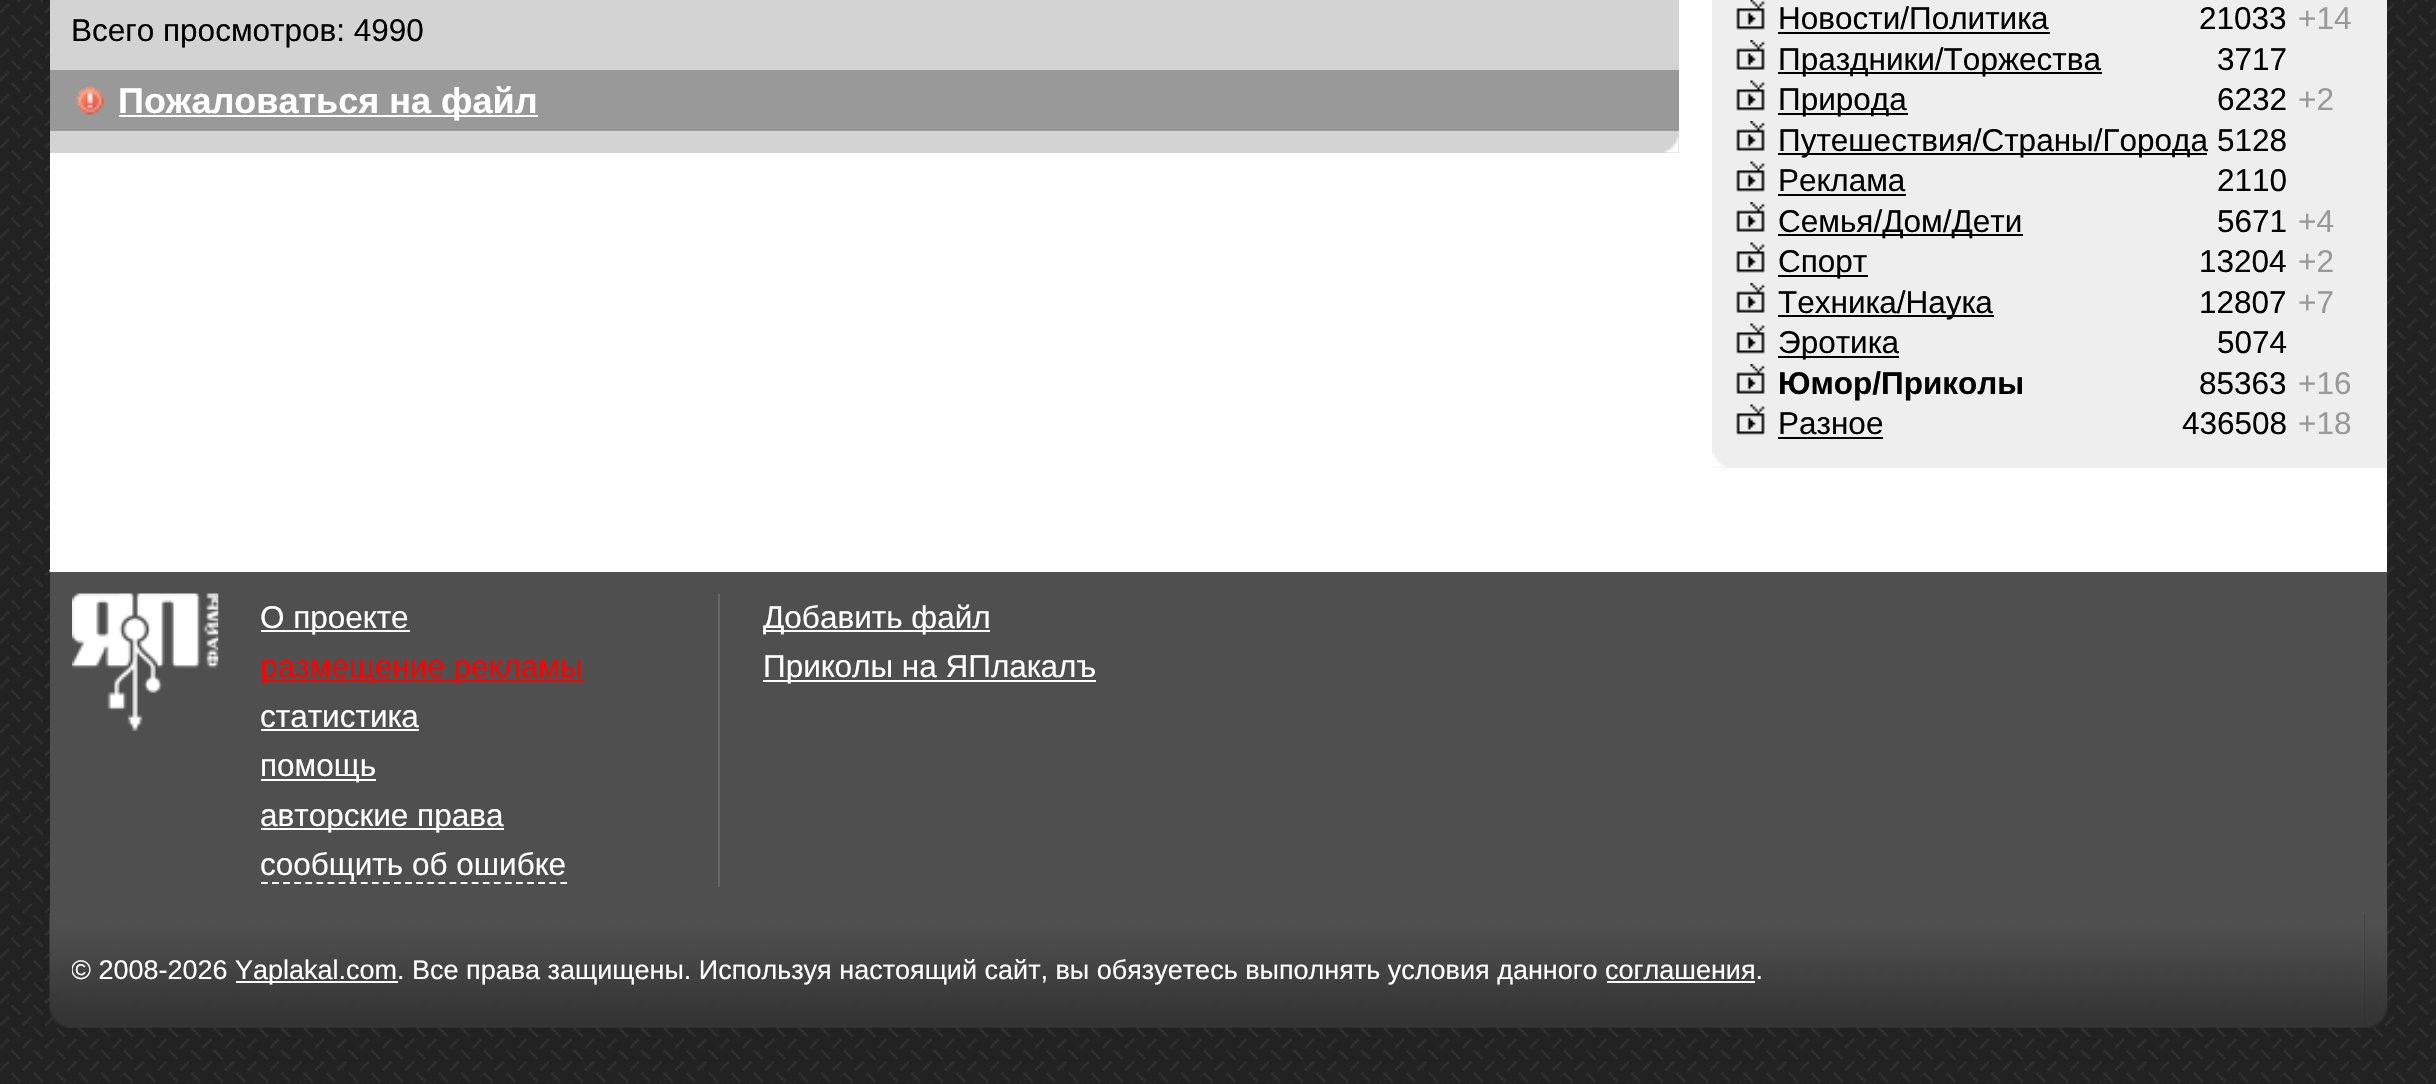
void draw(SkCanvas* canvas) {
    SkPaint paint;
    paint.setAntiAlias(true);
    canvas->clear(0xFF222222);
    canvas->drawImageRect(SkImages::DeferredFromEncodedData(SkData::MakeFromFileName("img1.png")), SkRect::MakeXYWH(0, 0, 2436, 1084), SkSamplingOptions());
    paint.setColor(0xFFFFFFFF);
    canvas->drawRect(SkRect::MakeXYWH(50, 0, 2337, 572), paint);
    paint.setColor(0xFFD3D3D3);
    canvas->drawRect(SkRect::MakeXYWH(50, 0, 1629, 153), paint);
    canvas->drawImageRect(SkImages::DeferredFromEncodedData(SkData::MakeFromFileName("img2.png")), SkRect::MakeXYWH(1664, 136, 15, 17), SkSamplingOptions());
    SkFont font1(fontMgr->matchFamilyStyle("Liberation Sans", SkFontStyle::Normal()), 31.5f);
    font1.setSubpixel(true);
    paint.setColor(0xFF000000);
    canvas->drawString("Всего просмотров: 4990", 71, 41, font1, paint);
    paint.setColor(0xFF999999);
    canvas->drawRect(SkRect::MakeXYWH(50, 70, 1629, 61), paint);
    canvas->drawImageRect(SkImages::DeferredFromEncodedData(SkData::MakeFromFileName("img3.png")), SkRect::MakeXYWH(76, 86, 29, 29), SkSamplingOptions());
    paint.setColor(0xFFFFFFFF);
    canvas->drawRect(SkRect::MakeXYWH(119, 115, 419, 2), paint);
    SkFont font2(fontMgr->matchFamilyStyle("Liberation Sans", SkFontStyle::Bold()), 36);
    font2.setSubpixel(true);
    canvas->drawString("Пожаловаться на файл", 118, 113, font2, paint);
    paint.setColor(0xFFEEEEEE);
    canvas->drawRect(SkRect::MakeXYWH(1712, 0, 675, 468), paint);
    canvas->drawImageRect(SkImages::DeferredFromEncodedData(SkData::MakeFromFileName("img4.png")), SkRect::MakeXYWH(1712, 452, 14, 16), SkSamplingOptions());
    canvas->drawImageRect(SkImages::DeferredFromEncodedData(SkData::MakeFromFileName("img5.png")), SkRect::MakeXYWH(1736, 0, 29, 30), SkSamplingOptions());
    paint.setColor(0xFF000000);
    canvas->drawString("Новости/Политика", 1778, 29, font1, paint);
    canvas->drawRect(SkRect::MakeXYWH(1778, 32, 272, 2), paint);
    canvas->drawString("21033", 2199, 29, font1, paint);
    paint.setColor(0xFF999999);
    canvas->drawString("+14", 2298, 29, font1, paint);
    canvas->drawImageRect(SkImages::DeferredFromEncodedData(SkData::MakeFromFileName("img6.png")), SkRect::MakeXYWH(1736, 40, 29, 30), SkSamplingOptions());
    paint.setColor(0xFF000000);
    canvas->drawRect(SkRect::MakeXYWH(1778, 72, 324, 2), paint);
    canvas->drawString("Праздники/Торжества", 1778, 70, font1, paint);
    canvas->drawString("3717", 2217, 70, font1, paint);
    canvas->drawImageRect(SkImages::DeferredFromEncodedData(SkData::MakeFromFileName("img7.png")), SkRect::MakeXYWH(1736, 80, 29, 31), SkSamplingOptions());
    canvas->drawRect(SkRect::MakeXYWH(1778, 113, 130, 2), paint);
    canvas->drawString("Природа", 1778, 110, font1, paint);
    canvas->drawString("6232", 2217, 110, font1, paint);
    paint.setColor(0xFF999999);
    canvas->drawString("+2", 2298, 110, font1, paint);
    canvas->drawImageRect(SkImages::DeferredFromEncodedData(SkData::MakeFromFileName("img6.png")), SkRect::MakeXYWH(1736, 121, 29, 30), SkSamplingOptions());
    paint.setColor(0xFF000000);
    canvas->drawRect(SkRect::MakeXYWH(1778, 153, 429, 2), paint);
    canvas->drawString("Путешествия/Cтраны/Города", 1778, 151, font1, paint);
    canvas->drawString("5128", 2217, 151, font1, paint);
    canvas->drawImageRect(SkImages::DeferredFromEncodedData(SkData::MakeFromFileName("img7.png")), SkRect::MakeXYWH(1736, 161, 29, 31), SkSamplingOptions());
    canvas->drawString("Реклама", 1778, 191, font1, paint);
    canvas->drawRect(SkRect::MakeXYWH(1778, 194, 128, 2), paint);
    canvas->drawString("2110", 2217, 191, font1, paint);
    canvas->drawImageRect(SkImages::DeferredFromEncodedData(SkData::MakeFromFileName("img6.png")), SkRect::MakeXYWH(1736, 202, 29, 30), SkSamplingOptions());
    canvas->drawRect(SkRect::MakeXYWH(1778, 234, 245, 2), paint);
    canvas->drawString("Семья/Дом/Дети", 1778, 232, font1, paint);
    canvas->drawString("5671", 2217, 232, font1, paint);
    paint.setColor(0xFF999999);
    canvas->drawString("+4", 2298, 232, font1, paint);
    canvas->drawImageRect(SkImages::DeferredFromEncodedData(SkData::MakeFromFileName("img7.png")), SkRect::MakeXYWH(1736, 242, 29, 31), SkSamplingOptions());
    paint.setColor(0xFF000000);
    canvas->drawRect(SkRect::MakeXYWH(1778, 275, 90, 2), paint);
    canvas->drawString("Спорт", 1778, 272, font1, paint);
    canvas->drawString("13204", 2199, 272, font1, paint);
    paint.setColor(0xFF999999);
    canvas->drawString("+2", 2298, 272, font1, paint);
    canvas->drawImageRect(SkImages::DeferredFromEncodedData(SkData::MakeFromFileName("img6.png")), SkRect::MakeXYWH(1736, 283, 29, 30), SkSamplingOptions());
    paint.setColor(0xFF000000);
    canvas->drawRect(SkRect::MakeXYWH(1778, 315, 216, 2), paint);
    canvas->drawString("Техника/Наука", 1778, 313, font1, paint);
    canvas->drawString("12807", 2199, 313, font1, paint);
    paint.setColor(0xFF999999);
    canvas->drawString("+7", 2298, 313, font1, paint);
    canvas->drawImageRect(SkImages::DeferredFromEncodedData(SkData::MakeFromFileName("img7.png")), SkRect::MakeXYWH(1736, 323, 29, 31), SkSamplingOptions());
    paint.setColor(0xFF000000);
    canvas->drawRect(SkRect::MakeXYWH(1778, 356, 121, 2), paint);
    canvas->drawString("Эротика", 1778, 353, font1, paint);
    canvas->drawString("5074", 2217, 353, font1, paint);
    canvas->drawImageRect(SkImages::DeferredFromEncodedData(SkData::MakeFromFileName("img6.png")), SkRect::MakeXYWH(1736, 364, 29, 30), SkSamplingOptions());
    SkFont font3(fontMgr->matchFamilyStyle("Liberation Sans", SkFontStyle::Bold()), 31.5f);
    font3.setSubpixel(true);
    canvas->drawString("Юмор/Приколы", 1778, 394, font3, paint);
    canvas->drawString("85363", 2199, 394, font1, paint);
    paint.setColor(0xFF999999);
    canvas->drawString("+16", 2298, 394, font1, paint);
    canvas->drawImageRect(SkImages::DeferredFromEncodedData(SkData::MakeFromFileName("img7.png")), SkRect::MakeXYWH(1736, 404, 29, 31), SkSamplingOptions());
    paint.setColor(0xFF000000);
    canvas->drawString("Разное", 1778, 434, font1, paint);
    canvas->drawRect(SkRect::MakeXYWH(1778, 437, 105, 2), paint);
    canvas->drawString("436508", 2182, 434, font1, paint);
    paint.setColor(0xFF999999);
    canvas->drawString("+18", 2298, 434, font1, paint);
    paint.setColor(0xFF4F4F4F);
    canvas->drawRect(SkRect::MakeXYWH(50, 572, 2337, 342), paint);
    paint.setStyle(SkPaint::kStroke_Style);
    paint.setStrokeWidth(2.2f);
    paint.setColor(0xFFFFFFFF);
    paint.setPathEffect(SkDashPathEffect::Make({{2.25f, 2.25f}}, 0));
    canvas->drawPath(SkPathBuilder().moveTo(49.5f, 570.5f).lineTo(2387, 570.5f).detach(), paint);
    paint.setPathEffect(nullptr);
    canvas->drawImageRect(SkImages::DeferredFromEncodedData(SkData::MakeFromFileName("img8.png")), SkRect::MakeXYWH(72, 593, 147, 138), SkSamplingOptions());
    paint.setStyle(SkPaint::kFill_Style);
    canvas->drawRect(SkRect::MakeXYWH(261, 630, 149, 2), paint);
    canvas->drawString("О проекте", 260, 628, font1, paint);
    paint.setColor(0xFFFF0000);
    canvas->drawRect(SkRect::MakeXYWH(261, 680, 322, 2), paint);
    canvas->drawString("размещение рекламы", 260, 677, font1, paint);
    paint.setColor(0xFFFFFFFF);
    canvas->drawString("статистика", 260, 727, font1, paint);
    canvas->drawRect(SkRect::MakeXYWH(261, 729, 158, 2), paint);
    canvas->drawRect(SkRect::MakeXYWH(261, 779, 115, 2), paint);
    canvas->drawString("помощь", 260, 776, font1, paint);
    canvas->drawRect(SkRect::MakeXYWH(261, 828, 243, 2), paint);
    canvas->drawString("авторские права", 260, 826, font1, paint);
    paint.setStyle(SkPaint::kStroke_Style);
    paint.setPathEffect(SkDashPathEffect::Make({{6.75f, 4.34f}}, 0));
    canvas->drawPath(SkPathBuilder().moveTo(261, 883).lineTo(567, 883).detach(), paint);
    paint.setPathEffect(nullptr);
    paint.setStyle(SkPaint::kFill_Style);
    canvas->drawString("сообщить об ошибке", 260, 875, font1, paint);
    paint.setColor(0xFF666666);
    canvas->drawRect(SkRect::MakeXYWH(718, 594, 2, 293), paint);
    paint.setColor(0xFFFFFFFF);
    canvas->drawRect(SkRect::MakeXYWH(763, 630, 227, 2), paint);
    canvas->drawString("Добавить файл", 763, 628, font1, paint);
    canvas->drawRect(SkRect::MakeXYWH(763, 680, 333, 2), paint);
    canvas->drawString("Приколы на ЯПлакалъ", 763, 677, font1, paint);
    canvas->drawImageRect(SkImages::DeferredFromEncodedData(SkData::MakeFromFileName("img10.png")), SkRect::MakeXYWH(72, 914, 2293, 114), SkSamplingOptions());
    SkFont font4(fontMgr->matchFamilyStyle("Liberation Sans", SkFontStyle::Normal()), 27);
    font4.setSubpixel(true);
    canvas->drawString("© 2008-2026", 71, 979, font4, paint);
    canvas->drawImageRect(SkImages::DeferredFromEncodedData(SkData::MakeFromFileName("img9.png")), SkRect::MakeXYWH(49, 913, 23, 115), SkSamplingOptions());
    canvas->drawRect(SkRect::MakeXYWH(236, 981, 162, 2), paint);
    canvas->drawString("Yaplakal.com. Все права защищены. Используя настоящий сайт, вы обязуетесь выполнять условия данного соглашения.", 235, 979, font4, paint);
    canvas->drawRect(SkRect::MakeXYWH(1607, 981, 148, 2), paint);
    canvas->drawImageRect(SkImages::DeferredFromEncodedData(SkData::MakeFromFileName("img11.png")), SkRect::MakeXYWH(2365, 913, 23, 115), SkSamplingOptions());
}
